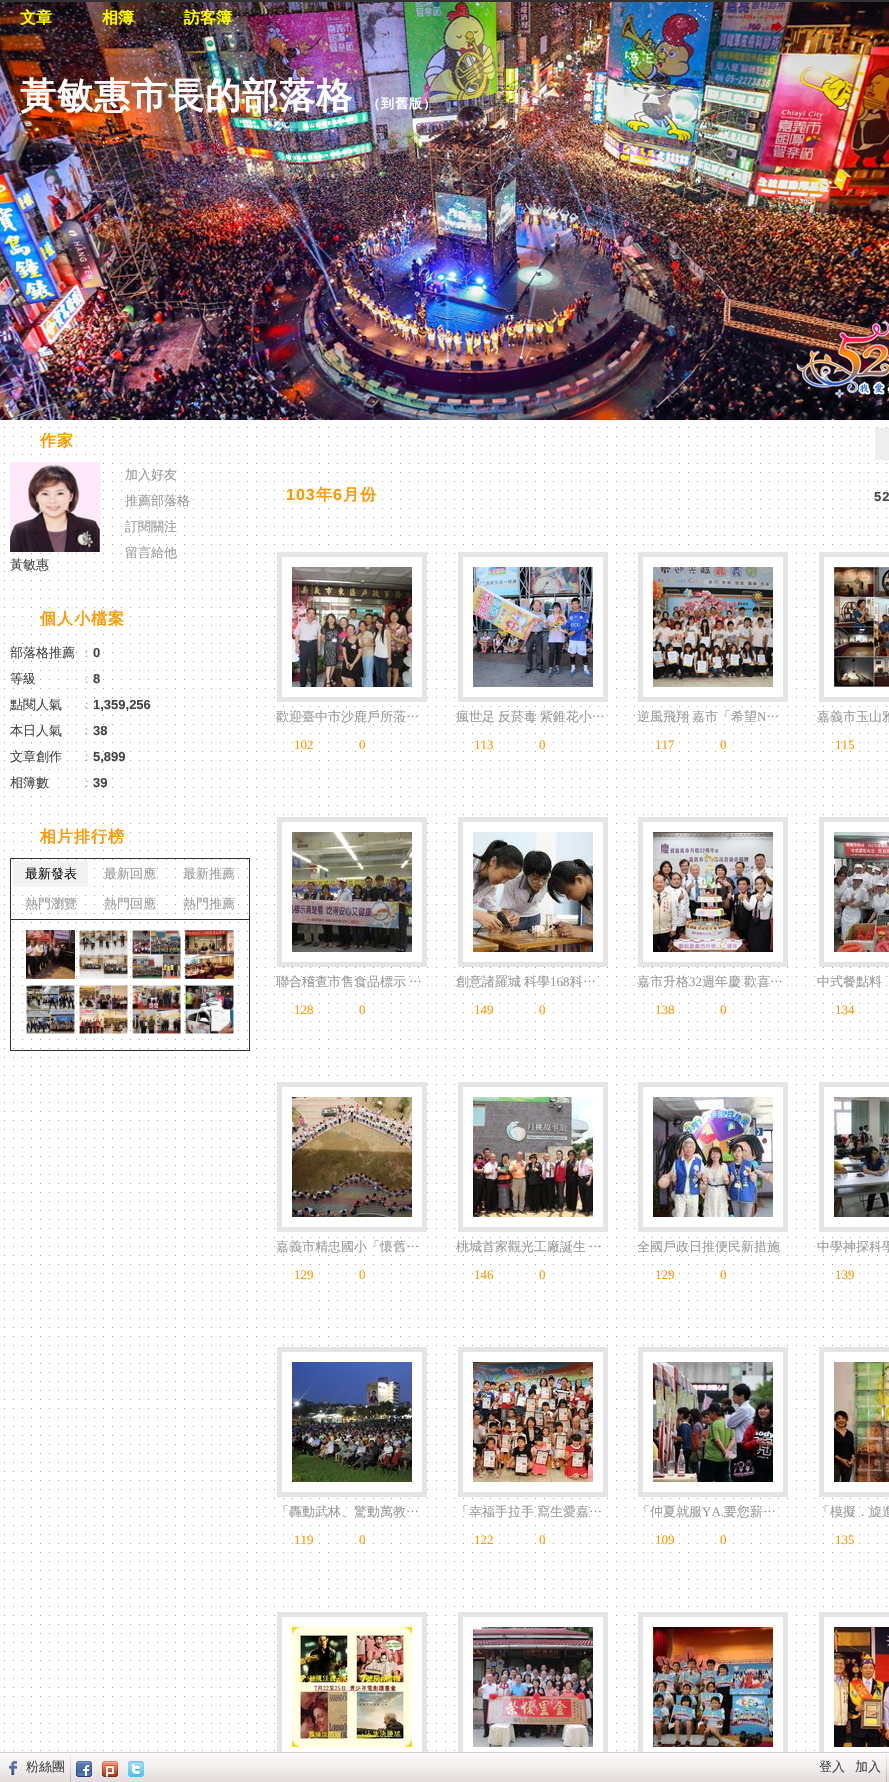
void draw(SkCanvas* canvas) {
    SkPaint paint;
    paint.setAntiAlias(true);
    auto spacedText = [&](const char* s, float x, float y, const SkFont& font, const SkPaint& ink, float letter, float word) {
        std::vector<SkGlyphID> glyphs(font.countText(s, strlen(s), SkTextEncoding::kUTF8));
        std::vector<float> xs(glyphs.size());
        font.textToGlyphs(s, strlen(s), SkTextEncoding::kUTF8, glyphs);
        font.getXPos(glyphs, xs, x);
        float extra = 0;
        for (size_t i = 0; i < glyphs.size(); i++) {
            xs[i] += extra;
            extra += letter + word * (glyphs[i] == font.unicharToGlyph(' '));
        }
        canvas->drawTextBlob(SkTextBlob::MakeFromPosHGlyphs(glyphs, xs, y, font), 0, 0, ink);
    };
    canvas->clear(0xFFFFFFFF);
    canvas->drawImageRect(SkImages::DeferredFromEncodedData(SkData::MakeFromFileName("img1.png")), SkRect::MakeXYWH(4, 420, 883, 1332), SkSamplingOptions());
    paint.setColor(0xFF333333);
    canvas->drawRect(SkRect::MakeXYWH(0, 0, 889, 2), paint);
    canvas->drawImageRect(SkImages::DeferredFromEncodedData(SkData::MakeFromFileName("img2.png")), SkRect::MakeXYWH(0, 2, 889, 418), SkSamplingOptions());
    SkFont font1(fontMgr->matchFamilyStyle("WenQuanYi Zen Hei", SkFontStyle::Bold()), 16);
    font1.setSubpixel(true);
    paint.setColor(0xFFFFFF00);
    canvas->drawString("文章", 20, 23, font1, paint);
    canvas->drawString("相簿", 102, 23, font1, paint);
    canvas->drawString("訪客簿", 184, 23, font1, paint);
    SkFont font2(fontMgr->matchFamilyStyle("WenQuanYi Zen Hei", SkFontStyle::Bold()), 36);
    font2.setSubpixel(true);
    paint.setColor(0xFFFFFFFF);
    spacedText("黃敏惠市長的部落格", 20, 108, font2, paint, 1, 0);
    SkFont font3(fontMgr->matchFamilyStyle("WenQuanYi Zen Hei", SkFontStyle::Bold()), 13);
    font3.setSubpixel(true);
    spacedText("（到舊版）", 367, 108, font3, paint, 1, 0);
    paint.setColor(0xFFFF9900);
    spacedText("作家", 40, 446, font1, paint, 1, 0);
    SkFont font4(fontMgr->matchFamilyStyle("WenQuanYi Zen Hei", SkFontStyle(500, SkFontStyle::kNormal_Width, SkFontStyle::kUpright_Slant)), 13);
    font4.setSubpixel(true);
    paint.setColor(0xFF999999);
    canvas->drawString("加入好友", 125, 479, font4, paint);
    canvas->drawString("推薦部落格", 125, 505, font4, paint);
    canvas->drawString("訂閱關注", 125, 531, font4, paint);
    canvas->drawString("留言給他", 125, 557, font4, paint);
    canvas->drawImageRect(SkImages::DeferredFromEncodedData(SkData::MakeFromFileName("img3.png")), SkRect::MakeXYWH(10, 462, 90, 90), SkSamplingOptions());
    paint.setColor(0xFF444444);
    canvas->drawString("黃敏惠", 10, 569, font4, paint);
    paint.setColor(0xFFFF9900);
    spacedText("個人小檔案", 40, 624, font1, paint, 1, 0);
    paint.setColor(0xFF444444);
    canvas->drawString("部落格推薦", 10, 657, font4, paint);
    paint.setColor(0xFFAAAAAA);
    canvas->drawString("：", 80, 657, font4, paint);
    SkFont font5(fontMgr->matchFamilyStyle("Liberation Sans", SkFontStyle::Bold()), 13);
    font5.setSubpixel(true);
    paint.setColor(0xFF444444);
    canvas->drawString("0", 93, 657, font5, paint);
    canvas->drawString("等級", 10, 683, font4, paint);
    paint.setColor(0xFFAAAAAA);
    canvas->drawString("：", 80, 683, font4, paint);
    paint.setColor(0xFF444444);
    canvas->drawString("8", 93, 683, font5, paint);
    canvas->drawString("點閱人氣", 10, 709, font4, paint);
    paint.setColor(0xFFAAAAAA);
    canvas->drawString("：", 80, 709, font4, paint);
    paint.setColor(0xFF444444);
    canvas->drawString("1,359,256", 93, 709, font5, paint);
    canvas->drawString("本日人氣", 10, 735, font4, paint);
    paint.setColor(0xFFAAAAAA);
    canvas->drawString("：", 80, 735, font4, paint);
    paint.setColor(0xFF444444);
    canvas->drawString("38", 93, 735, font5, paint);
    canvas->drawString("文章創作", 10, 761, font4, paint);
    paint.setColor(0xFFAAAAAA);
    canvas->drawString("：", 80, 761, font4, paint);
    paint.setColor(0xFF444444);
    canvas->drawString("5,899", 93, 761, font5, paint);
    canvas->drawString("相簿數", 10, 787, font4, paint);
    paint.setColor(0xFFAAAAAA);
    canvas->drawString("：", 80, 787, font4, paint);
    paint.setColor(0xFF444444);
    canvas->drawString("39", 93, 787, font5, paint);
    paint.setColor(0xFFFF9900);
    spacedText("相片排行榜", 40, 842, font1, paint, 1, 0);
    paint.setStyle(SkPaint::kStroke_Style);
    paint.setStrokeWidth(1);
    paint.setColor(0xFF333333);
    canvas->drawRect(SkRect::MakeXYWH(10.5f, 858.5f, 239, 61), paint);
    paint.setStyle(SkPaint::kFill_Style);
    paint.setColor(0xFFF2F2F2);
    canvas->drawRect(SkRect::MakeXYWH(13, 861, 75, 26), paint);
    paint.setColor(0xFF111111);
    canvas->drawString("最新發表", 25, 878, font4, paint);
    paint.setColor(0xFF999999);
    canvas->drawString("最新回應", 104, 878, font4, paint);
    canvas->drawString("最新推薦", 183, 878, font4, paint);
    canvas->drawString("熱門瀏覽", 25, 908, font4, paint);
    canvas->drawString("熱門回應", 104, 908, font4, paint);
    canvas->drawString("熱門推薦", 183, 908, font4, paint);
    paint.setColor(0xFF333333);
    canvas->drawRect(SkRect::MakeXYWH(249, 920, 1, 131), paint);
    canvas->drawRect(SkRect::MakeXYWH(10, 1050, 240, 1), paint);
    canvas->drawRect(SkRect::MakeXYWH(10, 920, 1, 131), paint);
    canvas->drawImageRect(SkImages::DeferredFromEncodedData(SkData::MakeFromFileName("img4.png")), SkRect::MakeXYWH(26, 930, 49, 49), SkSamplingOptions());
    canvas->drawImageRect(SkImages::DeferredFromEncodedData(SkData::MakeFromFileName("img5.png")), SkRect::MakeXYWH(79, 930, 49, 49), SkSamplingOptions());
    canvas->drawImageRect(SkImages::DeferredFromEncodedData(SkData::MakeFromFileName("img6.png")), SkRect::MakeXYWH(132, 930, 49, 49), SkSamplingOptions());
    canvas->drawImageRect(SkImages::DeferredFromEncodedData(SkData::MakeFromFileName("img7.png")), SkRect::MakeXYWH(185, 930, 49, 49), SkSamplingOptions());
    canvas->drawImageRect(SkImages::DeferredFromEncodedData(SkData::MakeFromFileName("img8.png")), SkRect::MakeXYWH(26, 985, 49, 49), SkSamplingOptions());
    canvas->drawImageRect(SkImages::DeferredFromEncodedData(SkData::MakeFromFileName("img9.png")), SkRect::MakeXYWH(79, 985, 49, 49), SkSamplingOptions());
    canvas->drawImageRect(SkImages::DeferredFromEncodedData(SkData::MakeFromFileName("img10.png")), SkRect::MakeXYWH(132, 985, 49, 49), SkSamplingOptions());
    canvas->drawImageRect(SkImages::DeferredFromEncodedData(SkData::MakeFromFileName("img11.png")), SkRect::MakeXYWH(185, 985, 49, 49), SkSamplingOptions());
    paint.setColor(0xFFEEEEEE);
    canvas->drawRect(SkRect::MakeXYWH(875, 428, 14, 32), paint);
    SkFont font6(fontMgr->matchFamilyStyle("Liberation Sans", SkFontStyle::Bold()), 16);
    font6.setSubpixel(true);
    paint.setColor(0xFFFF9900);
    spacedText("103", 286, 500, font6, paint, 1, 0);
    spacedText("年", 316, 500, font1, paint, 1, 0);
    spacedText("6", 333, 500, font6, paint, 1, 0);
    spacedText("月份", 343, 500, font1, paint, 1, 0);
    paint.setColor(0xFF444444);
    spacedText("52", 874, 501, font5, paint, 1, 0);
    paint.setColor(0xFFFFFFFF);
    canvas->drawRect(SkRect::MakeXYWH(283, 562, 136, 127), paint);
    paint.setStyle(SkPaint::kStroke_Style);
    paint.setStrokeWidth(5);
    paint.setColor(0xFFE5E5E5);
    canvas->drawRect(SkRect::MakeXYWH(279.5f, 554.5f, 145, 145), paint);
    canvas->drawImageRect(SkImages::DeferredFromEncodedData(SkData::MakeFromFileName("img12.png")), SkRect::MakeXYWH(292, 567, 120, 120), SkSamplingOptions());
    paint.setStyle(SkPaint::kFill_Style);
    paint.setColor(0xFF999999);
    canvas->drawString("歡迎臺中市沙鹿戶所蒞…", 276, 721, font4, paint);
    SkFont font7(fontMgr->matchFamilyStyle("Liberation Serif", SkFontStyle::Normal()), 13);
    font7.setSubpixel(true);
    paint.setColor(0xFFFF9900);
    canvas->drawString("102", 294, 749, font7, paint);
    canvas->drawString("0", 359, 749, font7, paint);
    paint.setColor(0xFFFFFFFF);
    canvas->drawRect(SkRect::MakeXYWH(463, 562, 136, 127), paint);
    paint.setStyle(SkPaint::kStroke_Style);
    paint.setColor(0xFFE5E5E5);
    canvas->drawRect(SkRect::MakeXYWH(460.5f, 554.5f, 145, 145), paint);
    canvas->drawImageRect(SkImages::DeferredFromEncodedData(SkData::MakeFromFileName("img13.png")), SkRect::MakeXYWH(473, 567, 120, 120), SkSamplingOptions());
    paint.setStyle(SkPaint::kFill_Style);
    paint.setColor(0xFF999999);
    spacedText("瘋世足 反菸毒 紫錐花小…", 456, 721, font4, paint, 0, -1);
    paint.setColor(0xFFFF9900);
    canvas->drawString("113", 474, 749, font7, paint);
    canvas->drawString("0", 539, 749, font7, paint);
    paint.setColor(0xFFFFFFFF);
    canvas->drawRect(SkRect::MakeXYWH(643, 562, 136, 127), paint);
    paint.setStyle(SkPaint::kStroke_Style);
    paint.setColor(0xFFE5E5E5);
    canvas->drawRect(SkRect::MakeXYWH(640.5f, 554.5f, 145, 145), paint);
    canvas->drawImageRect(SkImages::DeferredFromEncodedData(SkData::MakeFromFileName("img14.png")), SkRect::MakeXYWH(653, 567, 120, 120), SkSamplingOptions());
    paint.setStyle(SkPaint::kFill_Style);
    paint.setColor(0xFF999999);
    spacedText("逆風飛翔 嘉市「希望", 637, 721, font4, paint, 0, -1);
    canvas->drawString("N", 757, 721, font7, paint);
    spacedText("…", 766, 721, font4, paint, 0, -1);
    paint.setColor(0xFFFF9900);
    canvas->drawString("117", 655, 749, font7, paint);
    canvas->drawString("0", 720, 749, font7, paint);
    paint.setColor(0xFFFFFFFF);
    canvas->drawRect(SkRect::MakeXYWH(832, 562, 55, 127), paint);
    paint.setStyle(SkPaint::kStroke_Style);
    paint.setColor(0xFFE5E5E5);
    canvas->drawRect(SkRect::MakeXYWH(821.5f, 554.5f, 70, 145), paint);
    canvas->drawImageRect(SkImages::DeferredFromEncodedData(SkData::MakeFromFileName("img15.png")), SkRect::MakeXYWH(834, 567, 55, 120), SkSamplingOptions());
    paint.setStyle(SkPaint::kFill_Style);
    paint.setColor(0xFF999999);
    canvas->drawString("嘉義市玉山雅", 817, 721, font4, paint);
    paint.setColor(0xFFFF9900);
    canvas->drawString("115", 835, 749, font7, paint);
    paint.setColor(0xFFFFFFFF);
    canvas->drawRect(SkRect::MakeXYWH(283, 823, 136, 136), paint);
    paint.setStyle(SkPaint::kStroke_Style);
    paint.setColor(0xFFE5E5E5);
    canvas->drawRect(SkRect::MakeXYWH(279.5f, 819.5f, 145, 145), paint);
    canvas->drawImageRect(SkImages::DeferredFromEncodedData(SkData::MakeFromFileName("img16.png")), SkRect::MakeXYWH(292, 832, 120, 120), SkSamplingOptions());
    paint.setStyle(SkPaint::kFill_Style);
    paint.setColor(0xFF999999);
    spacedText("聯合稽查市售食品標示 …", 276, 986, font4, paint, 0, -1);
    paint.setColor(0xFFFF9900);
    canvas->drawString("128", 294, 1014, font7, paint);
    canvas->drawString("0", 359, 1014, font7, paint);
    paint.setColor(0xFFFFFFFF);
    canvas->drawRect(SkRect::MakeXYWH(463, 823, 136, 136), paint);
    paint.setStyle(SkPaint::kStroke_Style);
    paint.setColor(0xFFE5E5E5);
    canvas->drawRect(SkRect::MakeXYWH(460.5f, 819.5f, 145, 145), paint);
    canvas->drawImageRect(SkImages::DeferredFromEncodedData(SkData::MakeFromFileName("img17.png")), SkRect::MakeXYWH(473, 832, 120, 120), SkSamplingOptions());
    paint.setStyle(SkPaint::kFill_Style);
    paint.setColor(0xFF999999);
    spacedText("創意諸羅城 科學", 456, 986, font4, paint, 0, -1);
    canvas->drawString("168", 550, 986, font7, paint);
    spacedText("科…", 570, 986, font4, paint, 0, -1);
    paint.setColor(0xFFFF9900);
    canvas->drawString("149", 474, 1014, font7, paint);
    canvas->drawString("0", 539, 1014, font7, paint);
    paint.setColor(0xFFFFFFFF);
    canvas->drawRect(SkRect::MakeXYWH(643, 823, 136, 136), paint);
    paint.setStyle(SkPaint::kStroke_Style);
    paint.setColor(0xFFE5E5E5);
    canvas->drawRect(SkRect::MakeXYWH(640.5f, 819.5f, 145, 145), paint);
    canvas->drawImageRect(SkImages::DeferredFromEncodedData(SkData::MakeFromFileName("img18.png")), SkRect::MakeXYWH(653, 832, 120, 120), SkSamplingOptions());
    paint.setStyle(SkPaint::kFill_Style);
    paint.setColor(0xFF999999);
    canvas->drawString("嘉市升格", 637, 986, font4, paint);
    canvas->drawString("32", 689, 986, font7, paint);
    spacedText("週年慶 歡喜…", 702, 986, font4, paint, 0, -1);
    paint.setColor(0xFFFF9900);
    canvas->drawString("138", 655, 1014, font7, paint);
    canvas->drawString("0", 720, 1014, font7, paint);
    paint.setColor(0xFFFFFFFF);
    canvas->drawRect(SkRect::MakeXYWH(832, 823, 55, 136), paint);
    paint.setStyle(SkPaint::kStroke_Style);
    paint.setColor(0xFFE5E5E5);
    canvas->drawRect(SkRect::MakeXYWH(821.5f, 819.5f, 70, 145), paint);
    canvas->drawImageRect(SkImages::DeferredFromEncodedData(SkData::MakeFromFileName("img19.png")), SkRect::MakeXYWH(834, 832, 55, 120), SkSamplingOptions());
    paint.setStyle(SkPaint::kFill_Style);
    paint.setColor(0xFF999999);
    canvas->drawString("中式餐點料", 817, 986, font4, paint);
    paint.setColor(0xFFFF9900);
    canvas->drawString("134", 835, 1014, font7, paint);
    paint.setColor(0xFFFFFFFF);
    canvas->drawRect(SkRect::MakeXYWH(283, 1093, 136, 127), paint);
    paint.setStyle(SkPaint::kStroke_Style);
    paint.setColor(0xFFE5E5E5);
    canvas->drawRect(SkRect::MakeXYWH(279.5f, 1084.5f, 145, 145), paint);
    canvas->drawImageRect(SkImages::DeferredFromEncodedData(SkData::MakeFromFileName("img20.png")), SkRect::MakeXYWH(292, 1097, 120, 120), SkSamplingOptions());
    paint.setStyle(SkPaint::kFill_Style);
    paint.setColor(0xFF999999);
    canvas->drawString("嘉義市精忠國小「懷舊…", 276, 1251, font4, paint);
    paint.setColor(0xFFFF9900);
    canvas->drawString("129", 294, 1279, font7, paint);
    canvas->drawString("0", 359, 1279, font7, paint);
    paint.setColor(0xFFFFFFFF);
    canvas->drawRect(SkRect::MakeXYWH(463, 1093, 136, 127), paint);
    paint.setStyle(SkPaint::kStroke_Style);
    paint.setColor(0xFFE5E5E5);
    canvas->drawRect(SkRect::MakeXYWH(460.5f, 1084.5f, 145, 145), paint);
    canvas->drawImageRect(SkImages::DeferredFromEncodedData(SkData::MakeFromFileName("img21.png")), SkRect::MakeXYWH(473, 1097, 120, 120), SkSamplingOptions());
    paint.setStyle(SkPaint::kFill_Style);
    paint.setColor(0xFF999999);
    spacedText("桃城首家觀光工廠誕生 …", 456, 1251, font4, paint, 0, -1);
    paint.setColor(0xFFFF9900);
    canvas->drawString("146", 474, 1279, font7, paint);
    canvas->drawString("0", 539, 1279, font7, paint);
    paint.setColor(0xFFFFFFFF);
    canvas->drawRect(SkRect::MakeXYWH(643, 1093, 136, 127), paint);
    paint.setStyle(SkPaint::kStroke_Style);
    paint.setColor(0xFFE5E5E5);
    canvas->drawRect(SkRect::MakeXYWH(640.5f, 1084.5f, 145, 145), paint);
    canvas->drawImageRect(SkImages::DeferredFromEncodedData(SkData::MakeFromFileName("img22.png")), SkRect::MakeXYWH(653, 1097, 120, 120), SkSamplingOptions());
    paint.setStyle(SkPaint::kFill_Style);
    paint.setColor(0xFF999999);
    canvas->drawString("全國戶政日推便民新措施", 637, 1251, font4, paint);
    paint.setColor(0xFFFF9900);
    canvas->drawString("129", 655, 1279, font7, paint);
    canvas->drawString("0", 720, 1279, font7, paint);
    paint.setColor(0xFFFFFFFF);
    canvas->drawRect(SkRect::MakeXYWH(832, 1093, 55, 127), paint);
    paint.setStyle(SkPaint::kStroke_Style);
    paint.setColor(0xFFE5E5E5);
    canvas->drawRect(SkRect::MakeXYWH(821.5f, 1084.5f, 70, 145), paint);
    canvas->drawImageRect(SkImages::DeferredFromEncodedData(SkData::MakeFromFileName("img23.png")), SkRect::MakeXYWH(834, 1097, 55, 120), SkSamplingOptions());
    paint.setStyle(SkPaint::kFill_Style);
    paint.setColor(0xFF999999);
    canvas->drawString("中學神探科學", 817, 1251, font4, paint);
    paint.setColor(0xFFFF9900);
    canvas->drawString("139", 835, 1279, font7, paint);
    paint.setColor(0xFFFFFFFF);
    canvas->drawRect(SkRect::MakeXYWH(283, 1354, 136, 136), paint);
    paint.setStyle(SkPaint::kStroke_Style);
    paint.setColor(0xFFE5E5E5);
    canvas->drawRect(SkRect::MakeXYWH(279.5f, 1349.5f, 145, 145), paint);
    canvas->drawImageRect(SkImages::DeferredFromEncodedData(SkData::MakeFromFileName("img24.png")), SkRect::MakeXYWH(292, 1362, 120, 120), SkSamplingOptions());
    paint.setStyle(SkPaint::kFill_Style);
    paint.setColor(0xFF999999);
    spacedText("「轟動武林、驚動萬教…", 276, 1516, font4, paint, 0, -1);
    paint.setColor(0xFFFF9900);
    canvas->drawString("119", 294, 1544, font7, paint);
    canvas->drawString("0", 359, 1544, font7, paint);
    paint.setColor(0xFFFFFFFF);
    canvas->drawRect(SkRect::MakeXYWH(463, 1354, 136, 136), paint);
    paint.setStyle(SkPaint::kStroke_Style);
    paint.setColor(0xFFE5E5E5);
    canvas->drawRect(SkRect::MakeXYWH(460.5f, 1349.5f, 145, 145), paint);
    canvas->drawImageRect(SkImages::DeferredFromEncodedData(SkData::MakeFromFileName("img25.png")), SkRect::MakeXYWH(473, 1362, 120, 120), SkSamplingOptions());
    paint.setStyle(SkPaint::kFill_Style);
    paint.setColor(0xFF999999);
    spacedText("「幸福手拉手 寫生愛嘉…", 456, 1516, font4, paint, 0, -1);
    paint.setColor(0xFFFF9900);
    canvas->drawString("122", 474, 1544, font7, paint);
    canvas->drawString("0", 539, 1544, font7, paint);
    paint.setColor(0xFFFFFFFF);
    canvas->drawRect(SkRect::MakeXYWH(643, 1354, 136, 136), paint);
    paint.setStyle(SkPaint::kStroke_Style);
    paint.setColor(0xFFE5E5E5);
    canvas->drawRect(SkRect::MakeXYWH(640.5f, 1349.5f, 145, 145), paint);
    canvas->drawImageRect(SkImages::DeferredFromEncodedData(SkData::MakeFromFileName("img26.png")), SkRect::MakeXYWH(653, 1362, 120, 120), SkSamplingOptions());
    paint.setStyle(SkPaint::kFill_Style);
    paint.setColor(0xFF999999);
    canvas->drawString("「仲夏就服", 637, 1516, font4, paint);
    canvas->drawString("YA.", 702, 1516, font7, paint);
    canvas->drawString("要您薪…", 724, 1516, font4, paint);
    paint.setColor(0xFFFF9900);
    canvas->drawString("109", 655, 1544, font7, paint);
    canvas->drawString("0", 720, 1544, font7, paint);
    paint.setColor(0xFFFFFFFF);
    canvas->drawRect(SkRect::MakeXYWH(832, 1354, 55, 136), paint);
    paint.setStyle(SkPaint::kStroke_Style);
    paint.setColor(0xFFE5E5E5);
    canvas->drawRect(SkRect::MakeXYWH(821.5f, 1349.5f, 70, 145), paint);
    canvas->drawImageRect(SkImages::DeferredFromEncodedData(SkData::MakeFromFileName("img27.png")), SkRect::MakeXYWH(834, 1362, 55, 120), SkSamplingOptions());
    paint.setStyle(SkPaint::kFill_Style);
    paint.setColor(0xFF999999);
    canvas->drawString("「模擬．旋進", 817, 1516, font4, paint);
    paint.setColor(0xFFFF9900);
    canvas->drawString("135", 835, 1544, font7, paint);
    paint.setColor(0xFFFFFFFF);
    canvas->drawRect(SkRect::MakeXYWH(283, 1624, 136, 127), paint);
    paint.setStyle(SkPaint::kStroke_Style);
    paint.setColor(0xFFE5E5E5);
    canvas->drawRect(SkRect::MakeXYWH(279.5f, 1614.5f, 145, 145), paint);
    canvas->drawImageRect(SkImages::DeferredFromEncodedData(SkData::MakeFromFileName("img28.png")), SkRect::MakeXYWH(292, 1627, 120, 120), SkSamplingOptions());
    paint.setStyle(SkPaint::kFill_Style);
    paint.setColor(0xFFFFFFFF);
    canvas->drawRect(SkRect::MakeXYWH(463, 1624, 136, 127), paint);
    paint.setStyle(SkPaint::kStroke_Style);
    paint.setColor(0xFFE5E5E5);
    canvas->drawRect(SkRect::MakeXYWH(460.5f, 1614.5f, 145, 145), paint);
    canvas->drawImageRect(SkImages::DeferredFromEncodedData(SkData::MakeFromFileName("img29.png")), SkRect::MakeXYWH(473, 1627, 120, 120), SkSamplingOptions());
    paint.setStyle(SkPaint::kFill_Style);
    paint.setColor(0xFFFFFFFF);
    canvas->drawRect(SkRect::MakeXYWH(643, 1624, 136, 127), paint);
    paint.setStyle(SkPaint::kStroke_Style);
    paint.setColor(0xFFE5E5E5);
    canvas->drawRect(SkRect::MakeXYWH(640.5f, 1614.5f, 145, 145), paint);
    canvas->drawImageRect(SkImages::DeferredFromEncodedData(SkData::MakeFromFileName("img30.png")), SkRect::MakeXYWH(653, 1627, 120, 120), SkSamplingOptions());
    paint.setStyle(SkPaint::kFill_Style);
    paint.setColor(0xFFFFFFFF);
    canvas->drawRect(SkRect::MakeXYWH(832, 1624, 55, 127), paint);
    paint.setStyle(SkPaint::kStroke_Style);
    paint.setColor(0xFFE5E5E5);
    canvas->drawRect(SkRect::MakeXYWH(821.5f, 1614.5f, 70, 145), paint);
    canvas->drawImageRect(SkImages::DeferredFromEncodedData(SkData::MakeFromFileName("img31.png")), SkRect::MakeXYWH(834, 1627, 55, 120), SkSamplingOptions());
    canvas->drawImageRect(SkImages::DeferredFromEncodedData(SkData::MakeFromFileName("img32.png")), SkRect::MakeXYWH(0, 1752, 889, 30), SkSamplingOptions());
    canvas->drawImageRect(SkImages::DeferredFromEncodedData(SkData::MakeFromFileName("img33.png")), SkRect::MakeXYWH(9, 1761, 8, 14), SkSamplingOptions());
    paint.setStyle(SkPaint::kFill_Style);
    paint.setColor(0xFF444444);
    canvas->drawString("粉絲團", 26, 1771, font4, paint);
    canvas->drawImageRect(SkImages::DeferredFromEncodedData(SkData::MakeFromFileName("img34.png")), SkRect::MakeXYWH(70, 1754, 1, 28), SkSamplingOptions());
    canvas->drawImageRect(SkImages::DeferredFromEncodedData(SkData::MakeFromFileName("img35.png")), SkRect::MakeXYWH(76, 1761, 16, 16), SkSamplingOptions());
    canvas->drawImageRect(SkImages::DeferredFromEncodedData(SkData::MakeFromFileName("img36.png")), SkRect::MakeXYWH(102, 1761, 16, 16), SkSamplingOptions());
    canvas->drawImageRect(SkImages::DeferredFromEncodedData(SkData::MakeFromFileName("img37.png")), SkRect::MakeXYWH(128, 1761, 16, 16), SkSamplingOptions());
    canvas->drawString("登入", 819, 1771, font4, paint);
    canvas->drawString("加入", 855, 1771, font4, paint);
    canvas->drawImageRect(SkImages::DeferredFromEncodedData(SkData::MakeFromFileName("img34.png")), SkRect::MakeXYWH(886, 1754, 1, 28), SkSamplingOptions());
}
